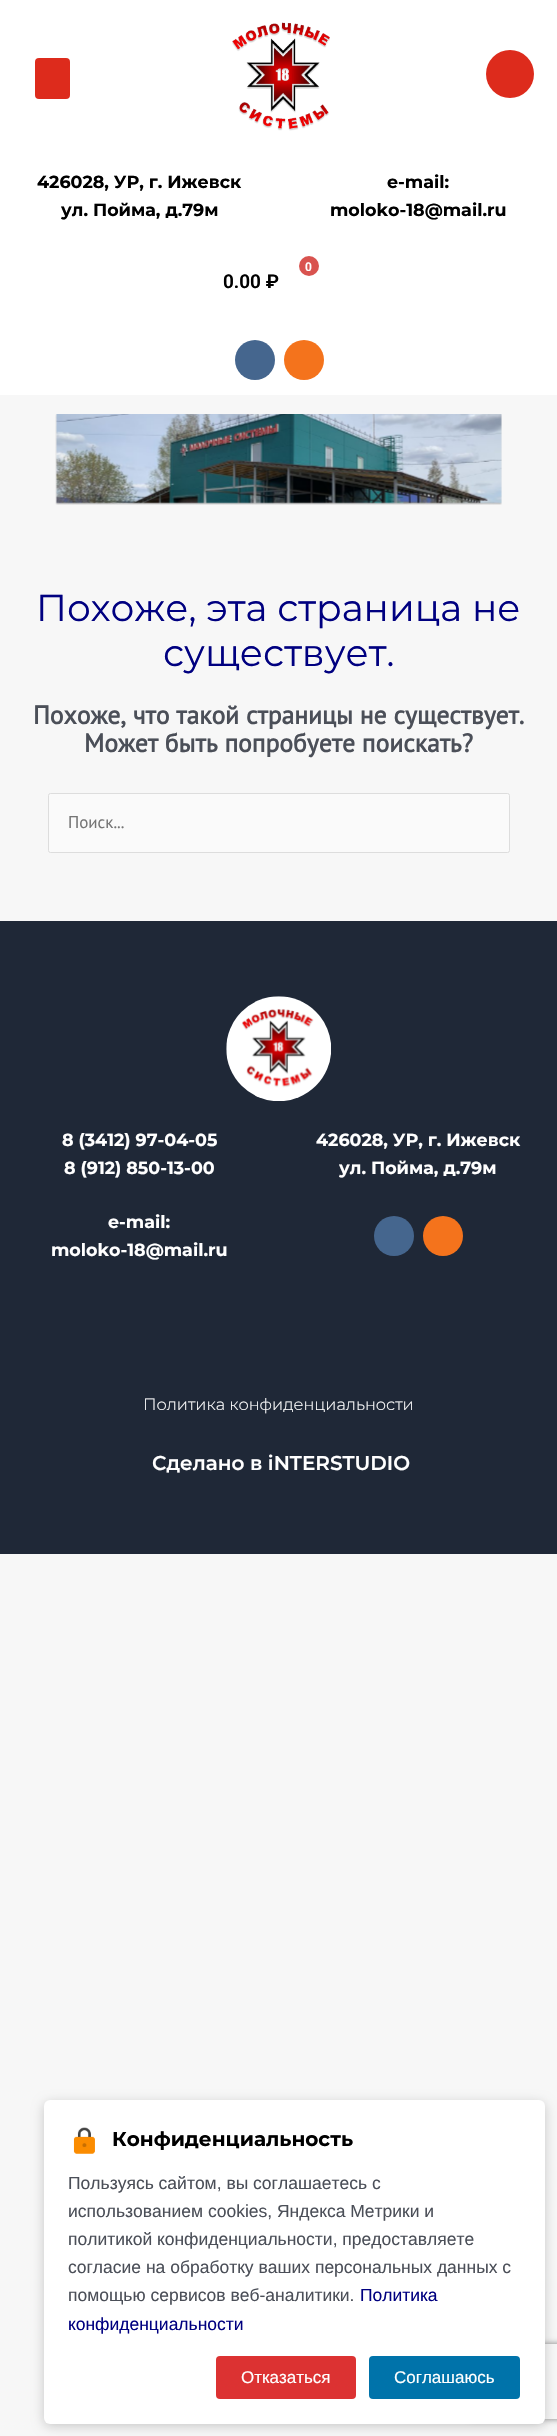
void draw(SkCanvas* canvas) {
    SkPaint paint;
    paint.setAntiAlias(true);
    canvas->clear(0xFFF7F7F7);
    paint.setColor(0xFFFFFFFF);
    canvas->drawRect(SkRect::MakeXYWH(0, 0, 557, 395), paint);
    paint.setColor(0xFFDD2B1C);
    canvas->drawRoundRect(SkRect::MakeXYWH(35, 58, 35, 41), 4, 4, paint);
    canvas->drawImageRect(SkImages::DeferredFromEncodedData(SkData::MakeFromFileName("img1.png")), SkRect::MakeXYWH(232, 22, 98, 109), SkSamplingOptions());
    canvas->drawCircle(510, 74, 24, paint);
    SkFont font1(fontMgr->matchFamilyStyle("Montserrat", SkFontStyle::Bold()), 17.5f);
    font1.setSubpixel(true);
    paint.setColor(0xFF000000);
    canvas->drawString("426028, УР, г. Ижевск", 37, 188, font1, paint);
    canvas->drawString("ул. Пойма, д.79м", 61, 216, font1, paint);
    canvas->drawString("e-mail:", 387, 188, font1, paint);
    canvas->drawString("moloko-18@mail.ru", 330, 216, font1, paint);
    paint.setColor(0xFFD9534F);
    canvas->drawCircle(309, 266, 10, paint);
    SkFont font2(fontMgr->matchFamilyStyle("Roboto", SkFontStyle(600, SkFontStyle::kNormal_Width, SkFontStyle::kUpright_Slant)), 12);
    font2.setSubpixel(true);
    paint.setColor(0xFFFFFFFF);
    canvas->drawString("0", 305, 271, font2, paint);
    SkFont font3(fontMgr->matchFamilyStyle("Roboto", SkFontStyle(600, SkFontStyle::kNormal_Width, SkFontStyle::kUpright_Slant)), 19);
    font3.setSubpixel(true);
    paint.setColor(0xFF000000);
    canvas->drawString("0.00 ₽", 223, 288, font3, paint);
    paint.setColor(0xFF45668E);
    canvas->drawCircle(255, 360, 20, paint);
    paint.setColor(0xFFF4731C);
    canvas->drawCircle(304, 360, 20, paint);
    canvas->drawImageRect(SkImages::DeferredFromEncodedData(SkData::MakeFromFileName("img2.png")), SkRect::MakeXYWH(55, 414, 447, 91), SkSamplingOptions());
    SkFont font4(fontMgr->matchFamilyStyle("Montserrat", SkFontStyle::Normal()), 37.5f);
    font4.setSubpixel(true);
    paint.setColor(0xFF000080);
    canvas->drawString("Похоже, эта страница не", 36, 621, font4, paint);
    canvas->drawString("существует.", 163, 666, font4, paint);
    SkFont font5(fontMgr->matchFamilyStyle("PT Sans", SkFontStyle::Bold()), 25.6f);
    font5.setSubpixel(true);
    paint.setColor(0xFF4B4F58);
    canvas->drawString("Похоже, что такой страницы не существует.", 33, 724, font5, paint);
    canvas->drawString("Может быть попробуете поискать?", 84, 752, font5, paint);
    paint.setColor(0xFFFAFAFA);
    canvas->drawRoundRect(SkRect::MakeXYWH(48.5f, 793.5f, 461, 59), 2, 2, paint);
    paint.setStyle(SkPaint::kStroke_Style);
    paint.setStrokeWidth(1);
    paint.setColor(0xFFDDDDDD);
    canvas->drawRoundRect(SkRect::MakeXYWH(48.5f, 793.5f, 461, 59), 2, 2, paint);
    SkFont font6(fontMgr->matchFamilyStyle("PT Sans", SkFontStyle::Normal()), 17);
    font6.setSubpixel(true);
    paint.setStyle(SkPaint::kFill_Style);
    paint.setColor(0xFF757575);
    canvas->drawString("Поиск...", 68, 828, font6, paint);
    paint.setColor(0xFF1F2837);
    canvas->drawRect(SkRect::MakeXYWH(0, 921, 557, 633), paint);
    canvas->drawImageRect(SkImages::DeferredFromEncodedData(SkData::MakeFromFileName("img3.png")), SkRect::MakeXYWH(226, 996, 105, 105), SkSamplingOptions());
    paint.setColor(0xFFFFFFFF);
    canvas->drawString("8 (3412) 97-04-05", 62, 1146, font1, paint);
    canvas->drawString("8 (912) 850-13-00", 64, 1174, font1, paint);
    canvas->drawString("426028, УР, г. Ижевск", 316, 1146, font1, paint);
    canvas->drawString("ул. Пойма, д.79м", 339, 1174, font1, paint);
    canvas->drawString("e-mail:", 108, 1228, font1, paint);
    canvas->drawString("moloko-18@mail.ru", 51, 1256, font1, paint);
    paint.setColor(0xFF45668E);
    canvas->drawCircle(394, 1236, 20, paint);
    paint.setColor(0xFFF4731C);
    canvas->drawCircle(443, 1236, 20, paint);
    SkFont font7(fontMgr->matchFamilyStyle("Montserrat", SkFontStyle(300, SkFontStyle::kNormal_Width, SkFontStyle::kUpright_Slant)), 16.25f);
    font7.setSubpixel(true);
    paint.setColor(0xFFFFFFFF);
    canvas->drawString("Политика конфиденциальности", 143, 1410, font7, paint);
    SkFont font8(fontMgr->matchFamilyStyle("Montserrat", SkFontStyle(600, SkFontStyle::kNormal_Width, SkFontStyle::kUpright_Slant)), 20);
    font8.setSubpixel(true);
    canvas->drawString("Сделано в iNTERSTUDIO", 152, 1470, font8, paint);
    paint.setColor(0x33000000);
    paint.setMaskFilter(SkMaskFilter::MakeBlur(kNormal_SkBlurStyle, 6));
    canvas->drawRoundRect(SkRect::MakeXYWH(44, 2103, 501, 323), 6, 6, paint);
    paint.setMaskFilter(nullptr);
    canvas->save();
    canvas->clipPath(SkPathBuilder(SkPathFillType::kEvenOdd).moveTo(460, 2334).lineTo(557, 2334).lineTo(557, 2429).lineTo(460, 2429).close().moveTo(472.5f, 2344).lineTo(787.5f, 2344).cubicTo(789, 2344, 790, 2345, 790, 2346.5f).lineTo(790, 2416.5f).cubicTo(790, 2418, 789, 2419, 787.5f, 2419).lineTo(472.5f, 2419).cubicTo(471, 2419, 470, 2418, 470, 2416.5f).lineTo(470, 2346.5f).cubicTo(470, 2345, 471, 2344, 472.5f, 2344).close().detach(), true);
    paint.setColor(0xFF808080);
    paint.setMaskFilter(SkMaskFilter::MakeBlur(kNormal_SkBlurStyle, 3));
    canvas->drawRoundRect(SkRect::MakeXYWH(470, 2344, 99, 75), 2.5f, 2.5f, paint);
    paint.setMaskFilter(nullptr);
    canvas->restore();
    paint.setColor(0xFFFFFFFF);
    canvas->drawRoundRect(SkRect::MakeXYWH(44, 2100, 501, 324), 6, 6, paint);
    canvas->drawImageRect(SkImages::DeferredFromEncodedData(SkData::MakeFromFileName("img4.png")), SkRect::MakeXYWH(73, 2127, 22, 27), SkSamplingOptions());
    SkFont font9(fontMgr->matchFamilyStyle("Montserrat", SkFontStyle::Bold()), 20);
    font9.setSubpixel(true);
    paint.setColor(0xFF000000);
    canvas->drawString("Конфиденциальность", 112, 2146, font9, paint);
    SkFont font10(fontMgr->matchFamilyStyle("Liberation Sans", SkFontStyle::Normal()), 17.5f);
    font10.setSubpixel(true);
    paint.setColor(0xFF4B4F58);
    canvas->drawString("Пользуясь сайтом, вы соглашаетесь с", 68, 2189, font10, paint);
    canvas->drawString("использованием cookies, Яндекса Метрики и", 68, 2217, font10, paint);
    canvas->drawString("политикой конфиденциальности, предоставляете", 68, 2245, font10, paint);
    canvas->drawString("согласие на обработку ваших персональных данных с", 68, 2273, font10, paint);
    canvas->drawString("помощью сервисов веб-аналитики.", 68, 2301, font10, paint);
    paint.setColor(0xFF000080);
    canvas->drawString("Политика", 360, 2301, font10, paint);
    canvas->drawString("конфиденциальности", 68, 2330, font10, paint);
    paint.setColor(0xFFDC3232);
    canvas->drawRoundRect(SkRect::MakeXYWH(216, 2356, 140, 43), 4, 4, paint);
    SkFont font11(fontMgr->matchFamilyStyle("Liberation Sans", SkFontStyle::Normal()), 17);
    font11.setSubpixel(true);
    paint.setColor(0xFFFFFFFF);
    canvas->drawString("Отказаться", 241, 2383, font11, paint);
    paint.setColor(0xFF0073AA);
    canvas->drawRoundRect(SkRect::MakeXYWH(369, 2356, 151, 43), 4, 4, paint);
    paint.setColor(0xFFFFFFFF);
    canvas->drawString("Соглашаюсь", 394, 2383, font11, paint);
}
